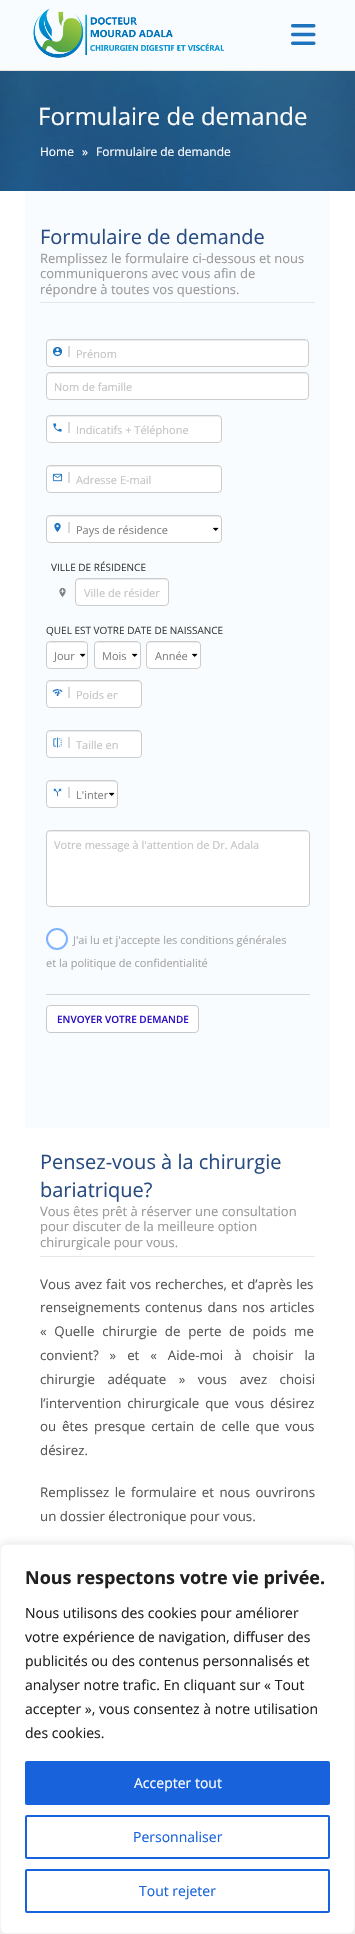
void draw(SkCanvas* canvas) {
    SkPaint paint;
    paint.setAntiAlias(true);
    auto spacedText = [&](const char* s, float x, float y, const SkFont& font, const SkPaint& ink, float letter, float word) {
        std::vector<SkGlyphID> glyphs(font.countText(s, strlen(s), SkTextEncoding::kUTF8));
        std::vector<float> xs(glyphs.size());
        font.textToGlyphs(s, strlen(s), SkTextEncoding::kUTF8, glyphs);
        font.getXPos(glyphs, xs, x);
        float extra = 0;
        for (size_t i = 0; i < glyphs.size(); i++) {
            xs[i] += extra;
            extra += letter + word * (glyphs[i] == font.unicharToGlyph(' '));
        }
        canvas->drawTextBlob(SkTextBlob::MakeFromPosHGlyphs(glyphs, xs, y, font), 0, 0, ink);
    };
    canvas->clear(0xFFFFFFFF);
    paint.setColor(0xFFF9FCFE);
    canvas->drawRect(SkRect::MakeXYWH(0, 0, 355, 70), paint);
    paint.setColor(0xFFE2E2E2);
    canvas->drawRect(SkRect::MakeXYWH(0, 70, 355, 1), paint);
    canvas->drawImageRect(SkImages::DeferredFromEncodedData(SkData::MakeFromFileName("img1.png")), SkRect::MakeXYWH(33, 8, 192, 55), SkSamplingOptions());
    canvas->drawImageRect(SkImages::DeferredFromEncodedData(SkData::MakeFromFileName("img2.png")), SkRect::MakeXYWH(291, 24, 25, 21), SkSamplingOptions());
    canvas->drawImageRect(SkImages::DeferredFromEncodedData(SkData::MakeFromFileName("img3.png")), SkRect::MakeXYWH(0, 71, 355, 120), SkSamplingOptions());
    SkFont font1(fontMgr->matchFamilyStyle("Open Sans", SkFontStyle::Normal()), 24);
    font1.setSubpixel(true);
    paint.setColor(0xFFFFFFFF);
    canvas->drawString("Formulaire de demande", 38, 125, font1, paint);
    SkFont font2(fontMgr->matchFamilyStyle("Open Sans", SkFontStyle::Normal()), 12);
    font2.setSubpixel(true);
    canvas->drawString("Home", 40, 156, font2, paint);
    canvas->drawString("»", 82, 156, font2, paint);
    canvas->drawString("Formulaire de demande", 96, 156, font2, paint);
    paint.setColor(0xFFF9FCFE);
    canvas->drawRect(SkRect::MakeXYWH(25, 191, 305, 937), paint);
    SkFont font3(fontMgr->matchFamilyStyle("Open Sans", SkFontStyle::Normal()), 20);
    font3.setSubpixel(true);
    paint.setColor(0xFF284B80);
    canvas->drawString("Formulaire de demande", 40, 244, font3, paint);
    paint.setColor(0xFFE7E7E7);
    canvas->drawRect(SkRect::MakeXYWH(40, 302, 275, 1), paint);
    SkFont font4(fontMgr->matchFamilyStyle("Open Sans", SkFontStyle::Normal()), 13);
    font4.setSubpixel(true);
    paint.setColor(0xFF999999);
    canvas->drawString("Remplissez le formulaire ci-dessous et nous", 40, 263, font4, paint);
    canvas->drawString("communiquerons avec vous afin de", 40, 278, font4, paint);
    canvas->drawString("répondre à toutes vos questions.", 40, 294, font4, paint);
    paint.setColor(0xFFFFFFFF);
    canvas->drawRoundRect(SkRect::MakeXYWH(46, 339, 263, 28), 4, 4, paint);
    paint.setColor(0xFFECECEC);
    canvas->drawPath(SkPathBuilder().moveTo(50, 341).lineTo(306, 341).lineTo(308, 342).lineTo(308, 344).lineTo(308, 343).cubicTo(308, 341, 307, 340, 305, 340).lineTo(50, 340).cubicTo(48, 340, 47, 341, 47, 343).lineTo(47, 344).cubicTo(47, 342, 48, 341, 50, 341).close().detach(), paint);
    paint.setStyle(SkPaint::kStroke_Style);
    paint.setStrokeWidth(1);
    paint.setColor(0xFFCCCCCC);
    canvas->drawRoundRect(SkRect::MakeXYWH(46.5f, 339.5f, 262, 27), 3.5f, 3.5f, paint);
    canvas->drawImageRect(SkImages::DeferredFromEncodedData(SkData::MakeFromFileName("img4.png")), SkRect::MakeXYWH(52, 346, 11, 11), SkSamplingOptions());
    paint.setStyle(SkPaint::kFill_Style);
    paint.setColor(0xFFDADADA);
    canvas->drawRect(SkRect::MakeXYWH(68, 346, 2, 11), paint);
    SkFont font5(fontMgr->matchFamilyStyle("Open Sans", SkFontStyle::Normal()), 11);
    font5.setSubpixel(true);
    paint.setColor(0xFFC3C3C3);
    canvas->drawString("Prénom", 76, 358, font5, paint);
    paint.setColor(0xFFFFFFFF);
    canvas->drawRoundRect(SkRect::MakeXYWH(46, 372, 263, 28), 4, 4, paint);
    paint.setColor(0xFFECECEC);
    canvas->drawPath(SkPathBuilder().moveTo(50, 374).lineTo(306, 374).lineTo(308, 375).lineTo(308, 377).lineTo(308, 376).cubicTo(308, 374, 307, 373, 305, 373).lineTo(50, 373).cubicTo(48, 373, 47, 374, 47, 376).lineTo(47, 377).cubicTo(47, 375, 48, 374, 50, 374).close().detach(), paint);
    paint.setStyle(SkPaint::kStroke_Style);
    paint.setColor(0xFFCCCCCC);
    canvas->drawRoundRect(SkRect::MakeXYWH(46.5f, 372.5f, 262, 27), 3.5f, 3.5f, paint);
    paint.setStyle(SkPaint::kFill_Style);
    paint.setColor(0xFFC3C3C3);
    canvas->drawString("Nom de famille", 54, 391, font5, paint);
    paint.setColor(0xFFFFFFFF);
    canvas->drawRoundRect(SkRect::MakeXYWH(46, 415, 176, 28), 4, 4, paint);
    paint.setColor(0xFFECECEC);
    canvas->drawPath(SkPathBuilder().moveTo(50, 417).lineTo(218, 417).cubicTo(220, 417, 221, 418, 221, 420).lineTo(221, 419).cubicTo(221, 417, 220, 416, 218, 416).lineTo(50, 416).cubicTo(48, 416, 47, 417, 47, 419).lineTo(47, 420).cubicTo(47, 418, 48, 417, 50, 417).close().detach(), paint);
    paint.setStyle(SkPaint::kStroke_Style);
    paint.setColor(0xFFCCCCCC);
    canvas->drawRoundRect(SkRect::MakeXYWH(46.5f, 415.5f, 175, 27), 3.5f, 3.5f, paint);
    canvas->drawImageRect(SkImages::DeferredFromEncodedData(SkData::MakeFromFileName("img5.png")), SkRect::MakeXYWH(53, 423, 9, 9), SkSamplingOptions());
    paint.setStyle(SkPaint::kFill_Style);
    paint.setColor(0xFFDADADA);
    canvas->drawRect(SkRect::MakeXYWH(68, 422, 2, 11), paint);
    paint.setColor(0xFFC3C3C3);
    canvas->drawString("Indicatifs + Téléphone", 76, 434, font5, paint);
    paint.setColor(0xFFFFFFFF);
    canvas->drawRoundRect(SkRect::MakeXYWH(46, 465, 176, 28), 4, 4, paint);
    paint.setColor(0xFFECECEC);
    canvas->drawPath(SkPathBuilder().moveTo(50, 467).lineTo(218, 467).cubicTo(220, 467, 221, 468, 221, 470).lineTo(221, 469).cubicTo(221, 467, 220, 466, 218, 466).lineTo(50, 466).cubicTo(48, 466, 47, 467, 47, 469).lineTo(47, 470).cubicTo(47, 468, 48, 467, 50, 467).close().detach(), paint);
    paint.setStyle(SkPaint::kStroke_Style);
    paint.setColor(0xFFCCCCCC);
    canvas->drawRoundRect(SkRect::MakeXYWH(46.5f, 465.5f, 175, 27), 3.5f, 3.5f, paint);
    canvas->drawImageRect(SkImages::DeferredFromEncodedData(SkData::MakeFromFileName("img6.png")), SkRect::MakeXYWH(52, 473, 11, 9), SkSamplingOptions());
    paint.setStyle(SkPaint::kFill_Style);
    paint.setColor(0xFFDADADA);
    canvas->drawRect(SkRect::MakeXYWH(68, 472, 2, 11), paint);
    paint.setColor(0xFFC3C3C3);
    canvas->drawString("Adresse E-mail", 76, 484, font5, paint);
    paint.setColor(0xFFFFFFFF);
    canvas->drawRoundRect(SkRect::MakeXYWH(46, 515, 176, 28), 4, 4, paint);
    canvas->drawImageRect(SkImages::DeferredFromEncodedData(SkData::MakeFromFileName("img8.png")), SkRect::MakeXYWH(213, 527, 6, 4), SkSamplingOptions());
    paint.setColor(0xFFECECEC);
    canvas->drawPath(SkPathBuilder().moveTo(50, 517).lineTo(218, 517).cubicTo(220, 517, 221, 518, 221, 520).lineTo(221, 519).cubicTo(221, 517, 220, 516, 218, 516).lineTo(50, 516).cubicTo(48, 516, 47, 517, 47, 519).lineTo(47, 520).cubicTo(47, 518, 48, 517, 50, 517).close().detach(), paint);
    paint.setStyle(SkPaint::kStroke_Style);
    paint.setColor(0xFFCCCCCC);
    canvas->drawRoundRect(SkRect::MakeXYWH(46.5f, 515.5f, 175, 27), 3.5f, 3.5f, paint);
    canvas->drawImageRect(SkImages::DeferredFromEncodedData(SkData::MakeFromFileName("img7.png")), SkRect::MakeXYWH(54, 522, 7, 10), SkSamplingOptions());
    paint.setStyle(SkPaint::kFill_Style);
    paint.setColor(0xFFDADADA);
    canvas->drawRect(SkRect::MakeXYWH(68, 522, 2, 11), paint);
    paint.setColor(0xFF808080);
    canvas->drawString("Pays de résidence", 76, 534, font5, paint);
    SkFont font6(fontMgr->matchFamilyStyle("Open Sans", SkFontStyle::Normal()), 10);
    font6.setSubpixel(true);
    paint.setColor(0xFF3D3D3D);
    canvas->drawString("VILLE DE RÉSIDENCE", 51, 571, font6, paint);
    canvas->drawImageRect(SkImages::DeferredFromEncodedData(SkData::MakeFromFileName("img9.png")), SkRect::MakeXYWH(59, 588, 7, 9), SkSamplingOptions());
    paint.setColor(0xFFFFFFFF);
    canvas->drawRoundRect(SkRect::MakeXYWH(75, 578, 94, 28), 4, 4, paint);
    paint.setColor(0xFFECECEC);
    canvas->drawPath(SkPathBuilder().moveTo(79, 580).lineTo(165, 580).cubicTo(167, 580, 168, 581, 168, 583).cubicTo(168, 575, 154, 579, 151, 579).lineTo(93, 579).cubicTo(90, 579, 76, 575, 76, 583).cubicTo(76, 581, 77, 580, 79, 580).close().detach(), paint);
    paint.setStyle(SkPaint::kStroke_Style);
    paint.setColor(0xFFCCCCCC);
    canvas->drawRoundRect(SkRect::MakeXYWH(75.5f, 578.5f, 93, 27), 3.5f, 3.5f, paint);
    canvas->save();
    canvas->clipRect(SkRect::MakeXYWH(84, 585, 76, 15));
    paint.setStyle(SkPaint::kFill_Style);
    paint.setColor(0xFFC3C3C3);
    canvas->drawString("Ville de résiden", 84, 597, font5, paint);
    canvas->restore();
    paint.setColor(0xFF3D3D3D);
    canvas->drawString("QUEL EST VOTRE DATE DE NAISSANCE", 46, 634, font6, paint);
    paint.setColor(0xFFFFFFFF);
    canvas->drawRoundRect(SkRect::MakeXYWH(46, 641, 42, 28), 4, 4, paint);
    canvas->drawImageRect(SkImages::DeferredFromEncodedData(SkData::MakeFromFileName("img8.png")), SkRect::MakeXYWH(80, 653, 6, 4), SkSamplingOptions());
    paint.setColor(0xFFECECEC);
    canvas->drawPath(SkPathBuilder().moveTo(50, 643).lineTo(84, 643).cubicTo(86, 643, 87, 644, 87, 646).cubicTo(87, 641, 82, 642, 78, 642).lineTo(56, 642).cubicTo(52, 642, 47, 641, 47, 646).cubicTo(47, 644, 48, 643, 50, 643).close().detach(), paint);
    paint.setStyle(SkPaint::kStroke_Style);
    paint.setColor(0xFFCCCCCC);
    canvas->drawRoundRect(SkRect::MakeXYWH(46.5f, 641.5f, 41, 27), 3.5f, 3.5f, paint);
    paint.setStyle(SkPaint::kFill_Style);
    paint.setColor(0xFF808080);
    canvas->drawString("Jour", 54, 660, font5, paint);
    paint.setColor(0xFFFFFFFF);
    canvas->drawRoundRect(SkRect::MakeXYWH(94, 641, 47, 28), 4, 4, paint);
    canvas->drawImageRect(SkImages::DeferredFromEncodedData(SkData::MakeFromFileName("img8.png")), SkRect::MakeXYWH(132, 653, 6, 4), SkSamplingOptions());
    paint.setColor(0xFFECECEC);
    canvas->drawPath(SkPathBuilder().moveTo(98, 643).lineTo(137, 643).cubicTo(139, 643, 140, 644, 140, 646).cubicTo(140, 641, 135, 642, 130, 642).lineTo(104, 642).cubicTo(100, 642, 95, 641, 95, 646).cubicTo(95, 644, 96, 643, 98, 643).close().detach(), paint);
    paint.setStyle(SkPaint::kStroke_Style);
    paint.setColor(0xFFCCCCCC);
    canvas->drawRoundRect(SkRect::MakeXYWH(94.5f, 641.5f, 46, 27), 3.5f, 3.5f, paint);
    paint.setStyle(SkPaint::kFill_Style);
    paint.setColor(0xFF808080);
    canvas->drawString("Mois", 102, 660, font5, paint);
    paint.setColor(0xFFFFFFFF);
    canvas->drawRoundRect(SkRect::MakeXYWH(146, 641, 55, 28), 4, 4, paint);
    canvas->drawImageRect(SkImages::DeferredFromEncodedData(SkData::MakeFromFileName("img8.png")), SkRect::MakeXYWH(192, 653, 6, 4), SkSamplingOptions());
    paint.setColor(0xFFECECEC);
    canvas->drawPath(SkPathBuilder().moveTo(150, 643).lineTo(197, 643).cubicTo(199, 643, 200, 644, 200, 646).cubicTo(200, 640, 194, 642, 189, 642).lineTo(158, 642).cubicTo(153, 642, 147, 640, 147, 646).cubicTo(147, 644, 148, 643, 150, 643).close().detach(), paint);
    paint.setStyle(SkPaint::kStroke_Style);
    paint.setColor(0xFFCCCCCC);
    canvas->drawRoundRect(SkRect::MakeXYWH(146.5f, 641.5f, 54, 27), 3.5f, 3.5f, paint);
    paint.setStyle(SkPaint::kFill_Style);
    paint.setColor(0xFF808080);
    canvas->drawString("Année", 155, 660, font5, paint);
    paint.setColor(0xFFFFFFFF);
    canvas->drawRoundRect(SkRect::MakeXYWH(46, 680, 96, 28), 4, 4, paint);
    paint.setColor(0xFFECECEC);
    canvas->drawPath(SkPathBuilder().moveTo(50, 682).lineTo(138, 682).cubicTo(140, 682, 141, 683, 141, 685).cubicTo(141, 677, 127, 681, 123, 681).lineTo(65, 681).cubicTo(61, 681, 47, 677, 47, 685).cubicTo(47, 683, 48, 682, 50, 682).close().detach(), paint);
    paint.setStyle(SkPaint::kStroke_Style);
    paint.setColor(0xFFCCCCCC);
    canvas->drawRoundRect(SkRect::MakeXYWH(46.5f, 680.5f, 95, 27), 3.5f, 3.5f, paint);
    canvas->drawImageRect(SkImages::DeferredFromEncodedData(SkData::MakeFromFileName("img10.png")), SkRect::MakeXYWH(52, 689, 11, 8), SkSamplingOptions());
    paint.setStyle(SkPaint::kFill_Style);
    paint.setColor(0xFFDADADA);
    canvas->drawRect(SkRect::MakeXYWH(68, 687, 2, 11), paint);
    canvas->save();
    canvas->clipRect(SkRect::MakeXYWH(76, 687, 42, 15));
    paint.setColor(0xFFC3C3C3);
    canvas->drawString("Poids en", 76, 699, font5, paint);
    canvas->restore();
    paint.setColor(0xFFFFFFFF);
    canvas->drawRoundRect(SkRect::MakeXYWH(46, 730, 96, 28), 4, 4, paint);
    paint.setColor(0xFFECECEC);
    canvas->drawPath(SkPathBuilder().moveTo(50, 732).lineTo(138, 732).cubicTo(140, 732, 141, 733, 141, 735).cubicTo(141, 727, 127, 731, 123, 731).lineTo(65, 731).cubicTo(61, 731, 47, 727, 47, 735).cubicTo(47, 733, 48, 732, 50, 732).close().detach(), paint);
    paint.setStyle(SkPaint::kStroke_Style);
    paint.setColor(0xFFCCCCCC);
    canvas->drawRoundRect(SkRect::MakeXYWH(46.5f, 730.5f, 95, 27), 3.5f, 3.5f, paint);
    canvas->drawImageRect(SkImages::DeferredFromEncodedData(SkData::MakeFromFileName("img11.png")), SkRect::MakeXYWH(53, 737, 9, 11), SkSamplingOptions());
    paint.setStyle(SkPaint::kFill_Style);
    paint.setColor(0xFFDADADA);
    canvas->drawRect(SkRect::MakeXYWH(68, 737, 2, 11), paint);
    paint.setColor(0xFFC3C3C3);
    canvas->drawString("Taille en", 76, 749, font5, paint);
    paint.setColor(0xFFFFFFFF);
    canvas->drawRoundRect(SkRect::MakeXYWH(46, 780, 72, 28), 4, 4, paint);
    canvas->drawImageRect(SkImages::DeferredFromEncodedData(SkData::MakeFromFileName("img8.png")), SkRect::MakeXYWH(109, 792, 6, 4), SkSamplingOptions());
    paint.setColor(0xFFECECEC);
    canvas->drawPath(SkPathBuilder().moveTo(50, 782).lineTo(114, 782).cubicTo(116, 782, 117, 783, 117, 785).cubicTo(117, 778, 108, 781, 103, 781).lineTo(61, 781).cubicTo(56, 781, 47, 778, 47, 785).cubicTo(47, 783, 48, 782, 50, 782).close().detach(), paint);
    paint.setStyle(SkPaint::kStroke_Style);
    paint.setColor(0xFFCCCCCC);
    canvas->drawRoundRect(SkRect::MakeXYWH(46.5f, 780.5f, 71, 27), 3.5f, 3.5f, paint);
    canvas->drawImageRect(SkImages::DeferredFromEncodedData(SkData::MakeFromFileName("img12.png")), SkRect::MakeXYWH(53, 788, 9, 9), SkSamplingOptions());
    paint.setStyle(SkPaint::kFill_Style);
    paint.setColor(0xFFDADADA);
    canvas->drawRect(SkRect::MakeXYWH(68, 787, 2, 11), paint);
    paint.setColor(0xFF808080);
    canvas->drawString("L'inter", 76, 799, font5, paint);
    paint.setColor(0xFFFFFFFF);
    canvas->drawRoundRect(SkRect::MakeXYWH(46, 830, 264, 77), 4, 4, paint);
    paint.setColor(0xFFECECEC);
    canvas->drawPath(SkPathBuilder().moveTo(50, 832).lineTo(307, 832).lineTo(309, 833).lineTo(309, 835).lineTo(309, 834).cubicTo(309, 832, 308, 831, 306, 831).lineTo(50, 831).cubicTo(48, 831, 47, 832, 47, 834).lineTo(47, 835).cubicTo(47, 833, 48, 832, 50, 832).close().detach(), paint);
    paint.setStyle(SkPaint::kStroke_Style);
    paint.setColor(0xFFCCCCCC);
    canvas->drawRoundRect(SkRect::MakeXYWH(46.5f, 830.5f, 263, 76), 3.5f, 3.5f, paint);
    paint.setStyle(SkPaint::kFill_Style);
    paint.setColor(0xFFC3C3C3);
    canvas->drawString("Votre message à l'attention de Dr. Adala", 54, 849, font5, paint);
    paint.setColor(0xFFFDFEFF);
    canvas->drawCircle(57, 939, 10, paint);
    paint.setStyle(SkPaint::kStroke_Style);
    paint.setStrokeWidth(2);
    paint.setColor(0xFF7FB2FF);
    canvas->drawCircle(57, 939, 10, paint);
    paint.setStyle(SkPaint::kFill_Style);
    paint.setColor(0xFFA4A5A6);
    canvas->drawString("J'ai lu et j'accepte les conditions générales", 73, 944, font5, paint);
    canvas->drawString("et la politique de confidentialité", 46, 967, font5, paint);
    paint.setColor(0xFFD6D6D6);
    canvas->drawRect(SkRect::MakeXYWH(46, 994, 264, 1), paint);
    paint.setColor(0xFFFFFFFF);
    canvas->drawRoundRect(SkRect::MakeXYWH(46.5f, 1005.5f, 152, 27), 3.5f, 3.5f, paint);
    paint.setStyle(SkPaint::kStroke_Style);
    paint.setStrokeWidth(1);
    paint.setColor(0xFFC9C9C9);
    canvas->drawRoundRect(SkRect::MakeXYWH(46.5f, 1005.5f, 152, 27), 3.5f, 3.5f, paint);
    SkFont font7(fontMgr->matchFamilyStyle("Open Sans", SkFontStyle(600, SkFontStyle::kNormal_Width, SkFontStyle::kUpright_Slant)), 10);
    font7.setSubpixel(true);
    paint.setStyle(SkPaint::kFill_Style);
    paint.setColor(0xFF2B11C2);
    canvas->drawString("ENVOYER VOTRE DEMANDE", 57, 1023, font7, paint);
    paint.setColor(0xFF284B80);
    canvas->drawString("Pensez-vous à la chirurgie", 40, 1169, font3, paint);
    canvas->drawString("bariatrique?", 40, 1197, font3, paint);
    paint.setColor(0xFFE7E7E7);
    canvas->drawRect(SkRect::MakeXYWH(40, 1256, 275, 1), paint);
    paint.setColor(0xFF999999);
    canvas->drawString("Vous êtes prêt à réserver une consultation", 40, 1216, font4, paint);
    canvas->drawString("pour discuter de la meilleure option", 40, 1231, font4, paint);
    canvas->drawString("chirurgicale pour vous.", 40, 1247, font4, paint);
    SkFont font8(fontMgr->matchFamilyStyle("Open Sans", SkFontStyle::Normal()), 13.3f);
    font8.setSubpixel(true);
    paint.setColor(0xFF575757);
    spacedText("Vous avez fait vos recherches, et d’après les", 40, 1289, font8, paint, 0, 0.5f);
    spacedText("renseignements contenus dans nos articles", 40, 1312, font8, paint, 0, 1.5f);
    spacedText("« Quelle chirurgie de perte de poids me", 40, 1336, font8, paint, 0, 4.25f);
    spacedText("convient? » et « Aide-moi à choisir la", 40, 1360, font8, paint, 0, 7.5f);
    spacedText("chirurgie adéquate » vous avez choisi", 40, 1384, font8, paint, 0, 9);
    spacedText("l’intervention chirurgicale que vous désirez", 40, 1408, font8, paint, 0, 2.5f);
    spacedText("ou êtes presque certain de celle que vous", 40, 1431, font8, paint, 0, 2.5f);
    canvas->drawString("désirez.", 40, 1455, font8, paint);
    spacedText("Remplissez le formulaire et nous ouvrirons", 40, 1497, font8, paint, 0, 2);
    canvas->drawString("un dossier électronique pour vous.", 40, 1521, font8, paint);
    paint.setColor(0xFFF5F5F5);
    canvas->drawRect(SkRect::MakeXYWH(0, 1928, 355, 6), paint);
    paint.setColor(0x4DACABAB);
    paint.setMaskFilter(SkMaskFilter::MakeBlur(kNormal_SkBlurStyle, 5));
    canvas->drawRoundRect(SkRect::MakeXYWH(0, 1543, 355, 390), 6, 6, paint);
    paint.setMaskFilter(nullptr);
    paint.setColor(0xFFFFFFFF);
    canvas->drawRoundRect(SkRect::MakeXYWH(0.5f, 1544.5f, 354, 389), 5.5f, 5.5f, paint);
    paint.setStyle(SkPaint::kStroke_Style);
    paint.setColor(0xFFF4F4F4);
    canvas->drawRoundRect(SkRect::MakeXYWH(0.5f, 1544.5f, 354, 389), 5.5f, 5.5f, paint);
    SkFont font9(fontMgr->matchFamilyStyle("Open Sans", SkFontStyle::Bold()), 18);
    font9.setSubpixel(true);
    paint.setStyle(SkPaint::kFill_Style);
    paint.setColor(0xFF212121);
    canvas->drawString("Nous respectons votre vie privée.", 25, 1584, font9, paint);
    SkFont font10(fontMgr->matchFamilyStyle("Open Sans", SkFontStyle::Normal()), 14);
    font10.setSubpixel(true);
    canvas->drawString("Nous utilisons des cookies pour améliorer", 25, 1618, font10, paint);
    canvas->drawString("votre expérience de navigation, diffuser des", 25, 1642, font10, paint);
    canvas->drawString("publicités ou des contenus personnalisés et", 25, 1666, font10, paint);
    canvas->drawString("analyser notre trafic. En cliquant sur « Tout", 25, 1690, font10, paint);
    canvas->drawString("accepter », vous consentez à notre utilisation", 25, 1714, font10, paint);
    canvas->drawString("des cookies.", 25, 1738, font10, paint);
    paint.setColor(0xFF1863DC);
    canvas->drawRoundRect(SkRect::MakeXYWH(26, 1762, 303, 42), 1, 1, paint);
    paint.setStyle(SkPaint::kStroke_Style);
    paint.setStrokeWidth(2);
    canvas->drawRoundRect(SkRect::MakeXYWH(26, 1762, 303, 42), 1, 1, paint);
    paint.setStyle(SkPaint::kFill_Style);
    paint.setColor(0xFFFFFFFF);
    canvas->drawString("Accepter tout", 134, 1788, font10, paint);
    paint.setStyle(SkPaint::kStroke_Style);
    paint.setColor(0xFF1863DC);
    canvas->drawRoundRect(SkRect::MakeXYWH(26, 1816, 303, 42), 1, 1, paint);
    paint.setStyle(SkPaint::kFill_Style);
    canvas->drawString("Personnaliser", 133, 1842, font10, paint);
    paint.setStyle(SkPaint::kStroke_Style);
    canvas->drawRoundRect(SkRect::MakeXYWH(26, 1870, 303, 42), 1, 1, paint);
    paint.setStyle(SkPaint::kFill_Style);
    canvas->drawString("Tout rejeter", 139, 1896, font10, paint);
}
